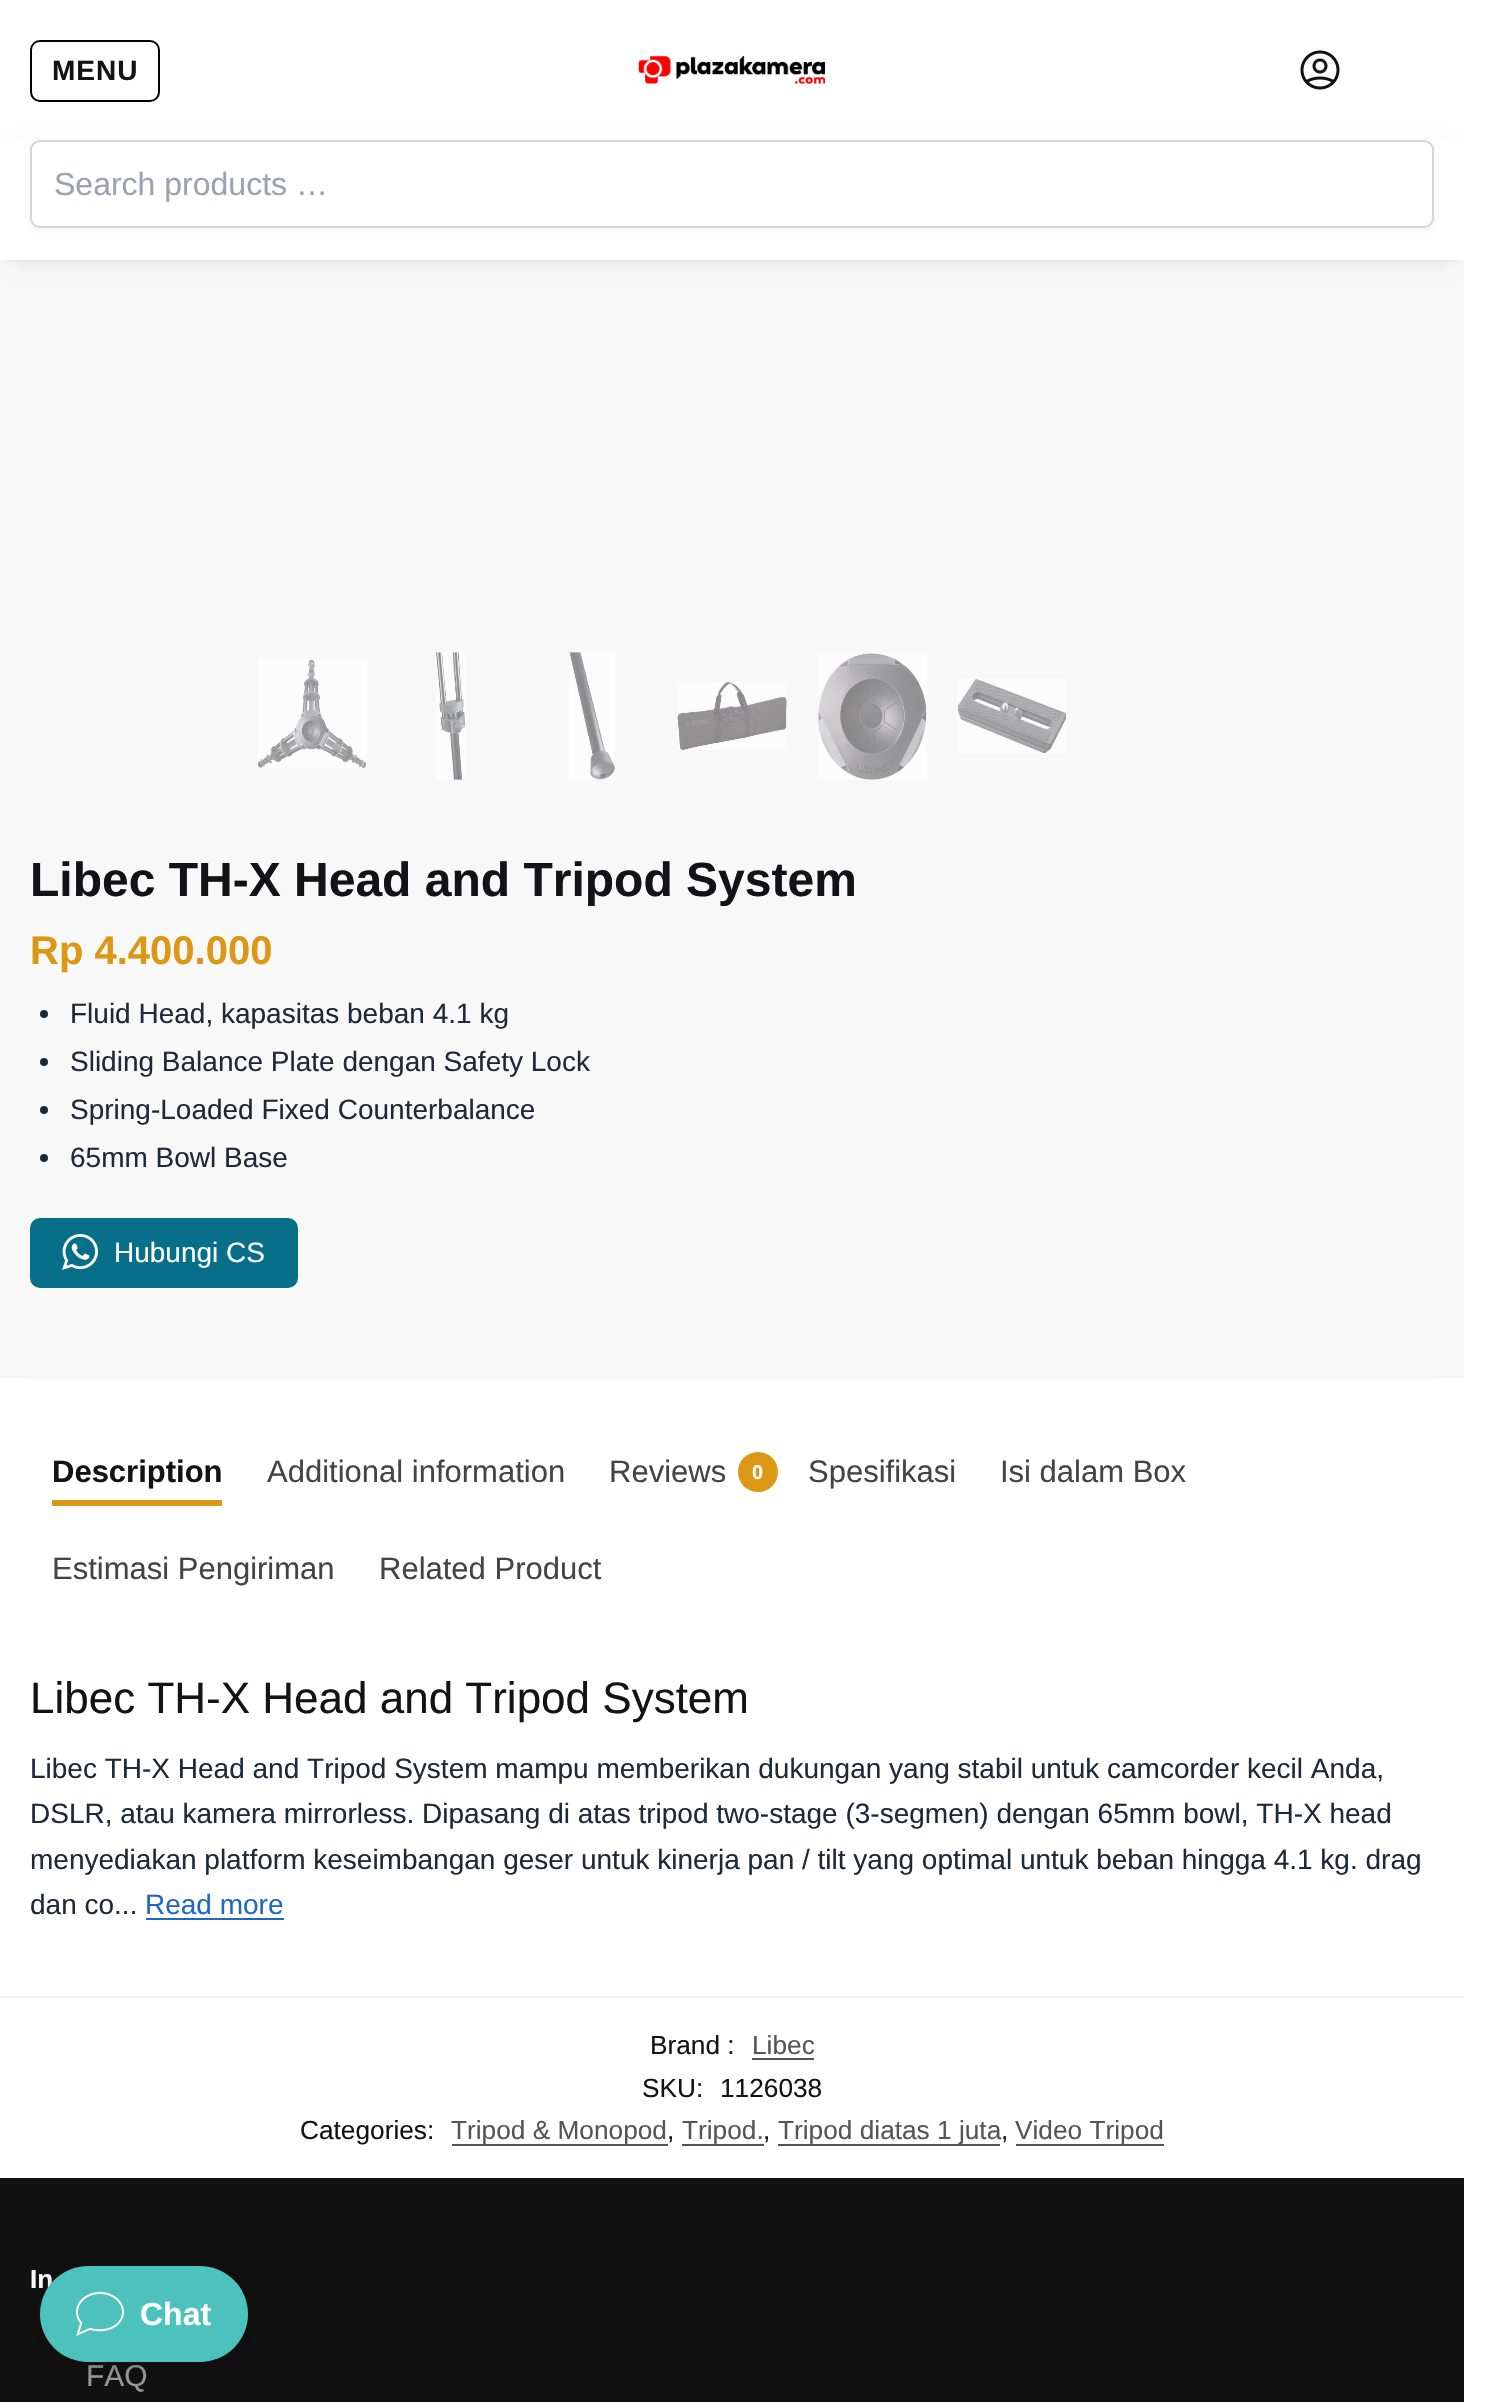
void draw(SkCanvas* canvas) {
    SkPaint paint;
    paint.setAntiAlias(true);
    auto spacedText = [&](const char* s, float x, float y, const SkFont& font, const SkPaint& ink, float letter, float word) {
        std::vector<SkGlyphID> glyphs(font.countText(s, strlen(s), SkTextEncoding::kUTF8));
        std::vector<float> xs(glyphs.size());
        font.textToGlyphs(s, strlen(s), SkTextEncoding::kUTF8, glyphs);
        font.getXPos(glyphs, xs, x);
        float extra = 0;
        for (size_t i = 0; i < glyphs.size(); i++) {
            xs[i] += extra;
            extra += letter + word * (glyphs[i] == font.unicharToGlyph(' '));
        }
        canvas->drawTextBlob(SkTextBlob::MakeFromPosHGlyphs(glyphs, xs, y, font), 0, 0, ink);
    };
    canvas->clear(0xFF111111);
    paint.setColor(0xFFFFFFFF);
    canvas->drawRect(SkRect::MakeXYWH(0, 0, 1464, 140), paint);
    paint.setStyle(SkPaint::kStroke_Style);
    paint.setStrokeWidth(2);
    paint.setColor(0xFF000000);
    canvas->drawRoundRect(SkRect::MakeXYWH(31, 41, 128, 60), 9, 9, paint);
    SkFont font1(fontMgr->matchFamilyStyle("Liberation Sans", SkFontStyle::Bold()), 28);
    font1.setSubpixel(true);
    paint.setStyle(SkPaint::kFill_Style);
    paint.setColor(0xFF131315);
    spacedText("MENU", 52, 80, font1, paint, 1, 0);
    canvas->drawImageRect(SkImages::DeferredFromEncodedData(SkData::MakeFromFileName("img1.png")), SkRect::MakeXYWH(638, 55, 188, 29), SkSamplingOptions());
    canvas->drawImageRect(SkImages::DeferredFromEncodedData(SkData::MakeFromFileName("img2.png")), SkRect::MakeXYWH(1300, 50, 40, 40), SkSamplingOptions());
    paint.setColor(0xFFF8F8F8);
    canvas->drawRect(SkRect::MakeXYWH(0, 260, 1464, 1116), paint);
    paint.setColor(0x2E000000);
    paint.setMaskFilter(SkMaskFilter::MakeBlur(kNormal_SkBlurStyle, 10));
    canvas->drawRect(SkRect::MakeXYWH(10, 156, 1444, 100), paint);
    paint.setMaskFilter(nullptr);
    paint.setColor(0xFFFFFFFF);
    canvas->drawRect(SkRect::MakeXYWH(0, 140, 1464, 120), paint);
    paint.setColor(0x0D000000);
    paint.setMaskFilter(SkMaskFilter::MakeBlur(kNormal_SkBlurStyle, 2));
    canvas->drawRoundRect(SkRect::MakeXYWH(30, 142, 1404, 88), 10, 10, paint);
    paint.setMaskFilter(nullptr);
    paint.setColor(0xFFFFFFFF);
    canvas->drawRoundRect(SkRect::MakeXYWH(31, 141, 1402, 86), 9, 9, paint);
    paint.setStyle(SkPaint::kStroke_Style);
    paint.setColor(0xFFD2D6DC);
    canvas->drawRoundRect(SkRect::MakeXYWH(31, 141, 1402, 86), 9, 9, paint);
    SkFont font2(fontMgr->matchFamilyStyle("Liberation Sans", SkFontStyle::Normal()), 32);
    font2.setSubpixel(true);
    paint.setStyle(SkPaint::kFill_Style);
    paint.setColor(0xFF9CA3AF);
    canvas->drawString("Search products …", 54, 195, font2, paint);
    paint.setColor(0xFFFFFFFF);
    canvas->drawRect(SkRect::MakeXYWH(1464, 0, 30, 2402), paint);
    canvas->drawImageRect(SkImages::DeferredFromEncodedData(SkData::MakeFromFileName("img3.png")), SkRect::MakeXYWH(258, 659, 109, 109), SkSamplingOptions());
    canvas->drawImageRect(SkImages::DeferredFromEncodedData(SkData::MakeFromFileName("img4.png")), SkRect::MakeXYWH(436, 652, 30, 128), SkSamplingOptions());
    canvas->drawImageRect(SkImages::DeferredFromEncodedData(SkData::MakeFromFileName("img5.png")), SkRect::MakeXYWH(569, 652, 46, 128), SkSamplingOptions());
    canvas->drawImageRect(SkImages::DeferredFromEncodedData(SkData::MakeFromFileName("img6.png")), SkRect::MakeXYWH(677, 682, 110, 68), SkSamplingOptions());
    canvas->drawImageRect(SkImages::DeferredFromEncodedData(SkData::MakeFromFileName("img7.png")), SkRect::MakeXYWH(818, 653, 109, 127), SkSamplingOptions());
    canvas->drawImageRect(SkImages::DeferredFromEncodedData(SkData::MakeFromFileName("img8.png")), SkRect::MakeXYWH(957, 679, 110, 74), SkSamplingOptions());
    SkFont font3(fontMgr->matchFamilyStyle("Liberation Sans", SkFontStyle::Bold()), 48);
    font3.setSubpixel(true);
    paint.setColor(0xFF131315);
    canvas->drawString("Libec TH-X Head and Tripod System", 30, 896, font3, paint);
    SkFont font4(fontMgr->matchFamilyStyle("Liberation Sans", SkFontStyle::Bold()), 40);
    font4.setSubpixel(true);
    paint.setColor(0xFFDC9814);
    canvas->drawString("Rp 4.400.000", 30, 964, font4, paint);
    paint.setColor(0xFF1F2937);
    canvas->drawCircle(44, 1014, 4, paint);
    SkFont font5(fontMgr->matchFamilyStyle("Liberation Sans", SkFontStyle::Normal()), 28);
    font5.setSubpixel(true);
    canvas->drawString("Fluid Head, kapasitas beban 4.1 kg", 70, 1023, font5, paint);
    canvas->drawCircle(44, 1062, 4, paint);
    canvas->drawString("Sliding Balance Plate dengan Safety Lock", 70, 1071, font5, paint);
    canvas->drawCircle(44, 1110, 4, paint);
    canvas->drawString("Spring-Loaded Fixed Counterbalance", 70, 1119, font5, paint);
    canvas->drawCircle(44, 1158, 4, paint);
    canvas->drawString("65mm Bowl Base", 70, 1167, font5, paint);
    paint.setColor(0xFF076F8A);
    canvas->drawRoundRect(SkRect::MakeXYWH(31, 1219, 266, 68), 9, 9, paint);
    paint.setStyle(SkPaint::kStroke_Style);
    canvas->drawRoundRect(SkRect::MakeXYWH(31, 1219, 266, 68), 9, 9, paint);
    canvas->drawImageRect(SkImages::DeferredFromEncodedData(SkData::MakeFromFileName("img9.png")), SkRect::MakeXYWH(62, 1234, 36, 36), SkSamplingOptions());
    paint.setStyle(SkPaint::kFill_Style);
    paint.setColor(0xFFFFFFFF);
    canvas->drawString("Hubungi CS", 114, 1262, font5, paint);
    canvas->drawRect(SkRect::MakeXYWH(0, 1378, 1464, 618), paint);
    paint.setColor(0xFFF5F5F5);
    canvas->drawRect(SkRect::MakeXYWH(0, 1376, 1464, 2), paint);
    paint.setColor(0xFFF8F8F8);
    canvas->drawRect(SkRect::MakeXYWH(30, 1378, 1404, 2), paint);
    SkFont font6(fontMgr->matchFamilyStyle("Liberation Sans", SkFontStyle::Bold()), 31);
    font6.setSubpixel(true);
    paint.setColor(0xFF131315);
    canvas->drawString("Description", 52, 1482, font6, paint);
    paint.setColor(0xFFDC9814);
    canvas->drawRect(SkRect::MakeXYWH(52, 1500, 170, 6), paint);
    SkFont font7(fontMgr->matchFamilyStyle("Liberation Sans", SkFontStyle::Normal()), 31);
    font7.setSubpixel(true);
    paint.setColor(0xFF444444);
    canvas->drawString("Additional information", 267, 1482, font7, paint);
    canvas->drawString("Reviews", 609, 1482, font7, paint);
    paint.setColor(0xFFDC9814);
    canvas->drawCircle(758, 1472, 20, paint);
    SkFont font8(fontMgr->matchFamilyStyle("Liberation Sans", SkFontStyle::Bold()), 20);
    font8.setSubpixel(true);
    paint.setColor(0xFFFFFFFF);
    canvas->drawString("0", 752, 1479, font8, paint);
    paint.setColor(0xFF444444);
    canvas->drawString("Spesifikasi", 808, 1482, font7, paint);
    canvas->drawString("Isi dalam Box", 1000, 1482, font7, paint);
    canvas->drawString("Estimasi Pengiriman", 52, 1579, font7, paint);
    canvas->drawString("Related Product", 379, 1579, font7, paint);
    SkFont font9(fontMgr->matchFamilyStyle("Liberation Sans", SkFontStyle::Normal()), 44);
    font9.setSubpixel(true);
    paint.setColor(0xFF131315);
    canvas->drawString("Libec TH-X Head and Tripod System", 30, 1713, font9, paint);
    paint.setColor(0xFF1F2937);
    canvas->drawString("Libec TH-X Head and Tripod System mampu memberikan dukungan yang stabil untuk camcorder kecil Anda,", 30, 1778, font5, paint);
    canvas->drawString("DSLR, atau kamera mirrorless. Dipasang di atas tripod two-stage (3-segmen) dengan 65mm bowl, TH-X head", 30, 1823, font5, paint);
    canvas->drawString("menyediakan platform keseimbangan geser untuk kinerja pan / tilt yang optimal untuk beban hingga 4.1 kg. drag", 30, 1869, font5, paint);
    canvas->drawString("dan co...", 30, 1914, font5, paint);
    paint.setColor(0xFF1E68C4);
    canvas->drawString("Read more", 145, 1914, font5, paint);
    canvas->drawRect(SkRect::MakeXYWH(146, 1918, 138, 2), paint);
    paint.setColor(0xFFFFFFFF);
    canvas->drawRect(SkRect::MakeXYWH(0, 1998, 1464, 180), paint);
    paint.setColor(0xFFF2F2F2);
    canvas->drawRect(SkRect::MakeXYWH(0, 1996, 1464, 2), paint);
    SkFont font10(fontMgr->matchFamilyStyle("Liberation Sans", SkFontStyle::Normal()), 26.25f);
    font10.setSubpixel(true);
    paint.setColor(0xFF131315);
    canvas->drawString("Brand :", 650, 2054, font10, paint);
    paint.setColor(0xFF555555);
    canvas->drawString("Libec", 752, 2054, font10, paint);
    canvas->drawRect(SkRect::MakeXYWH(752, 2058, 62, 2), paint);
    paint.setColor(0xFF131315);
    canvas->drawString("SKU:", 642, 2097, font10, paint);
    canvas->drawString("1126038", 720, 2097, font10, paint);
    canvas->drawString("Categories:", 300, 2139, font10, paint);
    paint.setColor(0xFF555555);
    canvas->drawRect(SkRect::MakeXYWH(452, 2144, 216, 2), paint);
    canvas->drawString("Tripod & Monopod", 451, 2139, font10, paint);
    paint.setColor(0xFF131315);
    canvas->drawString(",", 667, 2139, font10, paint);
    paint.setColor(0xFF555555);
    canvas->drawRect(SkRect::MakeXYWH(682, 2144, 82, 2), paint);
    canvas->drawString("Tripod.", 682, 2139, font10, paint);
    paint.setColor(0xFF131315);
    canvas->drawString(",", 763, 2139, font10, paint);
    paint.setColor(0xFF555555);
    canvas->drawRect(SkRect::MakeXYWH(778, 2144, 222, 2), paint);
    canvas->drawString("Tripod diatas 1 juta", 778, 2139, font10, paint);
    paint.setColor(0xFF131315);
    canvas->drawString(",", 1001, 2139, font10, paint);
    paint.setColor(0xFF555555);
    canvas->drawRect(SkRect::MakeXYWH(1016, 2144, 148, 2), paint);
    canvas->drawString("Video Tripod", 1015, 2139, font10, paint);
    SkFont font11(fontMgr->matchFamilyStyle("Liberation Sans", SkFontStyle::Bold()), 26);
    font11.setSubpixel(true);
    paint.setColor(0xFFFFFFFF);
    canvas->drawString("In", 30, 2288, font11, paint);
    SkFont font12(fontMgr->matchFamilyStyle("Liberation Sans", SkFontStyle::Normal()), 30);
    font12.setSubpixel(true);
    paint.setColor(0xFF999999);
    canvas->drawString("FAQ", 86, 2386, font12, paint);
    paint.setColor(0x33000000);
    paint.setMaskFilter(SkMaskFilter::MakeBlur(kNormal_SkBlurStyle, 10));
    canvas->drawRoundRect(SkRect::MakeXYWH(40, 2270, 208, 96), 48, 48, paint);
    paint.setMaskFilter(nullptr);
    paint.setColor(0xFF4DC2BD);
    canvas->drawRoundRect(SkRect::MakeXYWH(40, 2266, 208, 96), 48, 48, paint);
    canvas->drawImageRect(SkImages::DeferredFromEncodedData(SkData::MakeFromFileName("img10.png")), SkRect::MakeXYWH(76, 2292, 48, 44), SkSamplingOptions());
    SkFont font13(fontMgr->matchFamilyStyle("Liberation Sans", SkFontStyle::Bold()), 32);
    font13.setSubpixel(true);
    paint.setColor(0xFFFFFFFF);
    canvas->drawString("Chat", 140, 2325, font13, paint);
}
